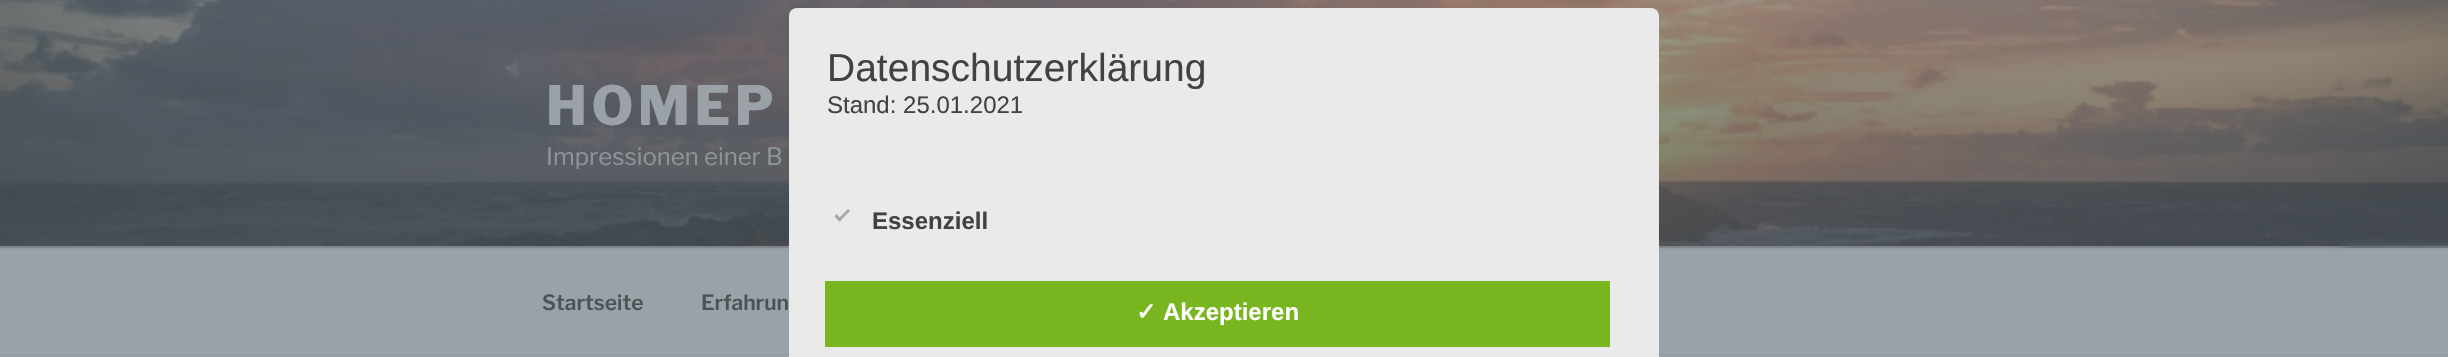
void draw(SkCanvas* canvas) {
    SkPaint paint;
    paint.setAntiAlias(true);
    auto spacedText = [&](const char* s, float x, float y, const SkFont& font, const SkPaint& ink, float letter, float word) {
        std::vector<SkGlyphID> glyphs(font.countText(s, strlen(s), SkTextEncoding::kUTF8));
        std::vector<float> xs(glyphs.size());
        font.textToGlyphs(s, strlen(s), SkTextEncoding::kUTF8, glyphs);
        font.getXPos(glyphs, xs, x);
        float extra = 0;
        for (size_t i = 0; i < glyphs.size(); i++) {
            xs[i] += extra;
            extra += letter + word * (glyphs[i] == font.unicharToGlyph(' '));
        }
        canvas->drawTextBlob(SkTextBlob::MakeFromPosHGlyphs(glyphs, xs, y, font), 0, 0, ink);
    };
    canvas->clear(0xFF9BA2A7);
    canvas->drawImageRect(SkImages::DeferredFromEncodedData(SkData::MakeFromFileName("img1.png")), SkRect::MakeXYWH(0, 0, 2448, 246), SkSamplingOptions());
    paint.setColor(0xFF6D7479);
    paint.setMaskFilter(SkMaskFilter::MakeBlur(kNormal_SkBlurStyle, 4));
    canvas->drawRoundRect(SkRect::MakeXYWH(2343, 246, 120, 90), 3, 3, paint);
    paint.setMaskFilter(nullptr);
    {
        const SkColor colors[] = {0x003F464B, 0x4D3F464B, 0x4D3F464B};
        const float stops[] = {0, 0.75f, 1};
        const SkPoint ends[] = {{1224, 0}, {1224, 248}};
        paint.setShader(SkGradientShader::MakeLinear(ends, colors, stops, 3, SkTileMode::kClamp));
        paint.setAlpha(255);
    }
    canvas->drawRect(SkRect::MakeXYWH(0, 13, 2448, 235), paint);
    SkFont font1(fontMgr->matchFamilyStyle("Libre Franklin", SkFontStyle(100, SkFontStyle::kNormal_Width, SkFontStyle::kUpright_Slant)), 54);
    font1.setSubpixel(true);
    paint.setShader(nullptr);
    paint.setColor(0xFF9BA2A7);
    spacedText("HOMEP", 546, 125, font1, paint, 4.5f, 0);
    SkFont font2(fontMgr->matchFamilyStyle("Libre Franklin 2", SkFontStyle(100, SkFontStyle::kNormal_Width, SkFontStyle::kUpright_Slant)), 24);
    font2.setSubpixel(true);
    paint.setColor(0xFF8E9599);
    canvas->drawString("Impressionen einer B", 546, 165, font2, paint);
    paint.setColor(0xFF9BA2A7);
    canvas->drawRect(SkRect::MakeXYWH(2337, 250, 111, 92), paint);
    paint.setColor(0xFF949CA1);
    canvas->drawRect(SkRect::MakeXYWH(0, 248, 2448, 2), paint);
    canvas->drawRect(SkRect::MakeXYWH(0, 354, 2448, 2), paint);
    SkFont font3(fontMgr->matchFamilyStyle("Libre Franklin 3", SkFontStyle(100, SkFontStyle::kNormal_Width, SkFontStyle::kUpright_Slant)), 21);
    font3.setSubpixel(true);
    paint.setColor(0xFF4B5357);
    canvas->drawString("Startseite", 542, 310, font3, paint);
    canvas->drawString("Erfahrun", 701, 310, font3, paint);
    paint.setColor(0xFFEAEAEA);
    canvas->drawRoundRect(SkRect::MakeXYWH(789, 8, 870, 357), 8, 8, paint);
    SkFont font4(fontMgr->matchFamilyStyle("Liberation Sans", SkFontStyle::Normal()), 39);
    font4.setSubpixel(true);
    paint.setColor(0xFF424242);
    canvas->drawString("Datenschutzerklärung", 827, 81, font4, paint);
    SkFont font5(fontMgr->matchFamilyStyle("Liberation Sans", SkFontStyle::Normal()), 24);
    font5.setSubpixel(true);
    canvas->drawString("Stand: 25.01.2021", 827, 113, font5, paint);
    paint.setColor(0xFFA7A7A7);
    canvas->drawPath(SkPathBuilder().moveTo(848, 209).lineTo(850, 211).lineTo(839.5f, 221.5f).lineTo(837.5f, 219.5f).close().detach(), paint);
    canvas->drawPath(SkPathBuilder().moveTo(836.5f, 214).lineTo(841.5f, 219.5f).lineTo(839.5f, 221.5f).lineTo(834.5f, 216.5f).close().detach(), paint);
    SkFont font6(fontMgr->matchFamilyStyle("Liberation Sans", SkFontStyle::Bold()), 24);
    font6.setSubpixel(true);
    paint.setColor(0xFF424242);
    canvas->drawString("Essenziell", 872, 229, font6, paint);
    paint.setColor(0xFF79B51F);
    canvas->drawRect(SkRect::MakeXYWH(825, 281, 785, 66), paint);
    SkFont font7(fontMgr->matchFamilyStyle("DejaVu Sans", SkFontStyle::Bold()), 24);
    font7.setSubpixel(true);
    paint.setColor(0xFFFFFFFF);
    canvas->drawString("✓", 1136, 320, font7, paint);
    canvas->drawString("Akzeptieren", 1163, 320, font6, paint);
}
